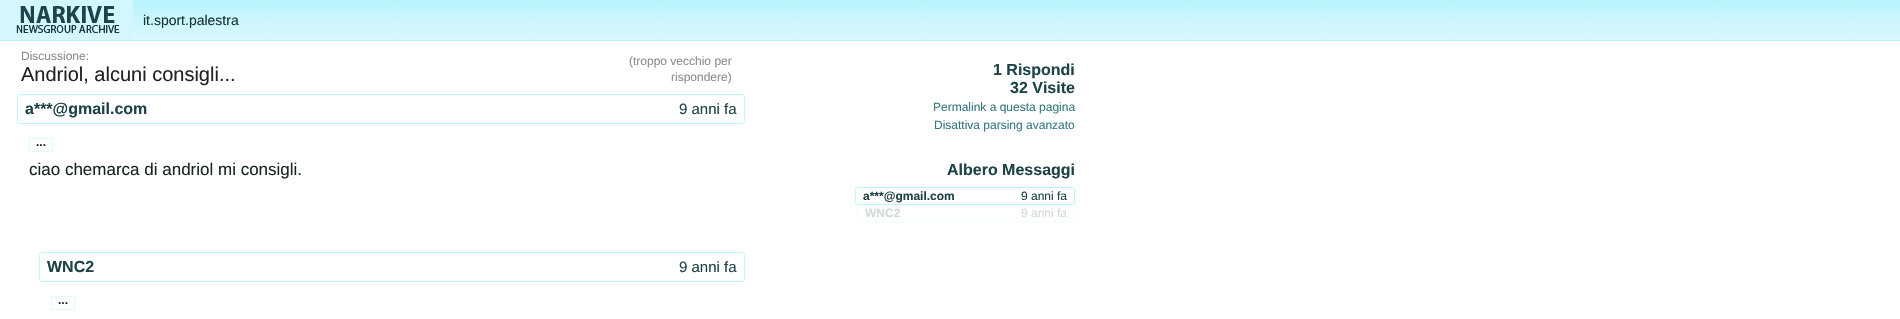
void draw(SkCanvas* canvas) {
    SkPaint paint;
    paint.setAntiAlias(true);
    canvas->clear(0xFFFFFFFF);
    canvas->drawImageRect(SkImages::DeferredFromEncodedData(SkData::MakeFromFileName("img1.png")), SkRect::MakeXYWH(133, 0, 1767, 40), SkSamplingOptions());
    paint.setColor(0xFFB2F3FC);
    canvas->drawRect(SkRect::MakeXYWH(0, 40, 1900, 1), paint);
    paint.setColor(0xFFD3F7FC);
    canvas->drawRect(SkRect::MakeXYWH(0, 0, 133, 40), paint);
    canvas->drawImageRect(SkImages::DeferredFromEncodedData(SkData::MakeFromFileName("img2.png")), SkRect::MakeXYWH(20, 6, 95, 17), SkSamplingOptions());
    canvas->drawImageRect(SkImages::DeferredFromEncodedData(SkData::MakeFromFileName("img3.png")), SkRect::MakeXYWH(16, 25, 104, 8), SkSamplingOptions());
    SkFont font1(fontMgr->matchFamilyStyle("Liberation Sans", SkFontStyle::Normal()), 14);
    font1.setSubpixel(true);
    paint.setColor(0xFF163438);
    canvas->drawString("it.sport.palestra", 143, 25, font1, paint);
    SkFont font2(fontMgr->matchFamilyStyle("Liberation Sans", SkFontStyle::Normal()), 12);
    font2.setSubpixel(true);
    paint.setColor(0xFF8C8C8C);
    canvas->drawString("Discussione:", 21, 60, font2, paint);
    SkFont font3(fontMgr->matchFamilyStyle("Liberation Sans", SkFontStyle::Normal()), 20);
    font3.setSubpixel(true);
    paint.setColor(0xFF222222);
    canvas->drawString("Andriol, alcuni consigli...", 21, 81, font3, paint);
    paint.setColor(0xFF8C8C8C);
    canvas->drawString("(troppo vecchio per", 629, 65, font2, paint);
    canvas->drawString("rispondere)", 671, 81, font2, paint);
    paint.setStyle(SkPaint::kStroke_Style);
    paint.setStrokeWidth(1);
    paint.setColor(0xFFBBF7FF);
    canvas->drawRoundRect(SkRect::MakeXYWH(17.5f, 94.5f, 727, 29), 2.5f, 2.5f, paint);
    SkFont font4(fontMgr->matchFamilyStyle("Liberation Sans", SkFontStyle::Bold()), 16);
    font4.setSubpixel(true);
    paint.setStyle(SkPaint::kFill_Style);
    paint.setColor(0xFF1D4247);
    canvas->drawString("a***@gmail.com", 25, 114, font4, paint);
    SkFont font5(fontMgr->matchFamilyStyle("Liberation Sans", SkFontStyle::Normal()), 15);
    font5.setSubpixel(true);
    canvas->drawString("9 anni fa", 679, 114, font5, paint);
    paint.setStyle(SkPaint::kStroke_Style);
    paint.setColor(0xFFDDFBFF);
    canvas->drawRect(SkRect::MakeXYWH(29.5f, 138.5f, 23, 13), paint);
    SkFont font6(fontMgr->matchFamilyStyle("Liberation Sans", SkFontStyle::Bold()), 12);
    font6.setSubpixel(true);
    paint.setStyle(SkPaint::kFill_Style);
    paint.setColor(0xFF192527);
    canvas->drawString("...", 36, 146, font6, paint);
    SkFont font7(fontMgr->matchFamilyStyle("Liberation Sans", SkFontStyle::Normal()), 17);
    font7.setSubpixel(true);
    canvas->drawString("ciao chemarca di andriol mi consigli.", 29, 175, font7, paint);
    paint.setStyle(SkPaint::kStroke_Style);
    paint.setColor(0xFFBBF7FF);
    canvas->drawRoundRect(SkRect::MakeXYWH(39.5f, 252.5f, 705, 29), 2.5f, 2.5f, paint);
    paint.setStyle(SkPaint::kFill_Style);
    paint.setColor(0xFF1D4247);
    canvas->drawString("WNC2", 47, 272, font4, paint);
    canvas->drawString("9 anni fa", 679, 272, font5, paint);
    paint.setStyle(SkPaint::kStroke_Style);
    paint.setColor(0xFFDDFBFF);
    canvas->drawRect(SkRect::MakeXYWH(51.5f, 296.5f, 23, 13), paint);
    paint.setStyle(SkPaint::kFill_Style);
    paint.setColor(0xFF192527);
    canvas->drawString("...", 58, 304, font6, paint);
    paint.setColor(0xFF1D4247);
    canvas->drawString("1 Rispondi", 993, 75, font4, paint);
    canvas->drawString("32 Visite", 1010, 93, font4, paint);
    paint.setColor(0xFF347780);
    canvas->drawString("Permalink a questa pagina", 933, 111, font2, paint);
    canvas->drawString("Disattiva parsing avanzato", 934, 129, font2, paint);
    paint.setColor(0xFF1D4247);
    canvas->drawString("Albero Messaggi", 947, 175, font4, paint);
    paint.setStyle(SkPaint::kStroke_Style);
    paint.setColor(0xFFBBF7FF);
    canvas->drawRoundRect(SkRect::MakeXYWH(855.5f, 187.5f, 219, 17), 2.5f, 2.5f, paint);
    paint.setStyle(SkPaint::kFill_Style);
    paint.setColor(0xFF1D4247);
    canvas->drawString("a***@gmail.com", 863, 200, font6, paint);
    canvas->drawString("9 anni fa", 1021, 200, font2, paint);
    paint.setStyle(SkPaint::kStroke_Style);
    paint.setColor(0x33BBF7FF);
    canvas->drawRoundRect(SkRect::MakeXYWH(857.5f, 204.5f, 217, 17), 2.5f, 2.5f, paint);
    paint.setStyle(SkPaint::kFill_Style);
    paint.setColor(0xFFD2D9DA);
    canvas->drawString("WNC2", 865, 217, font6, paint);
    canvas->drawString("9 anni fa", 1021, 217, font2, paint);
}
